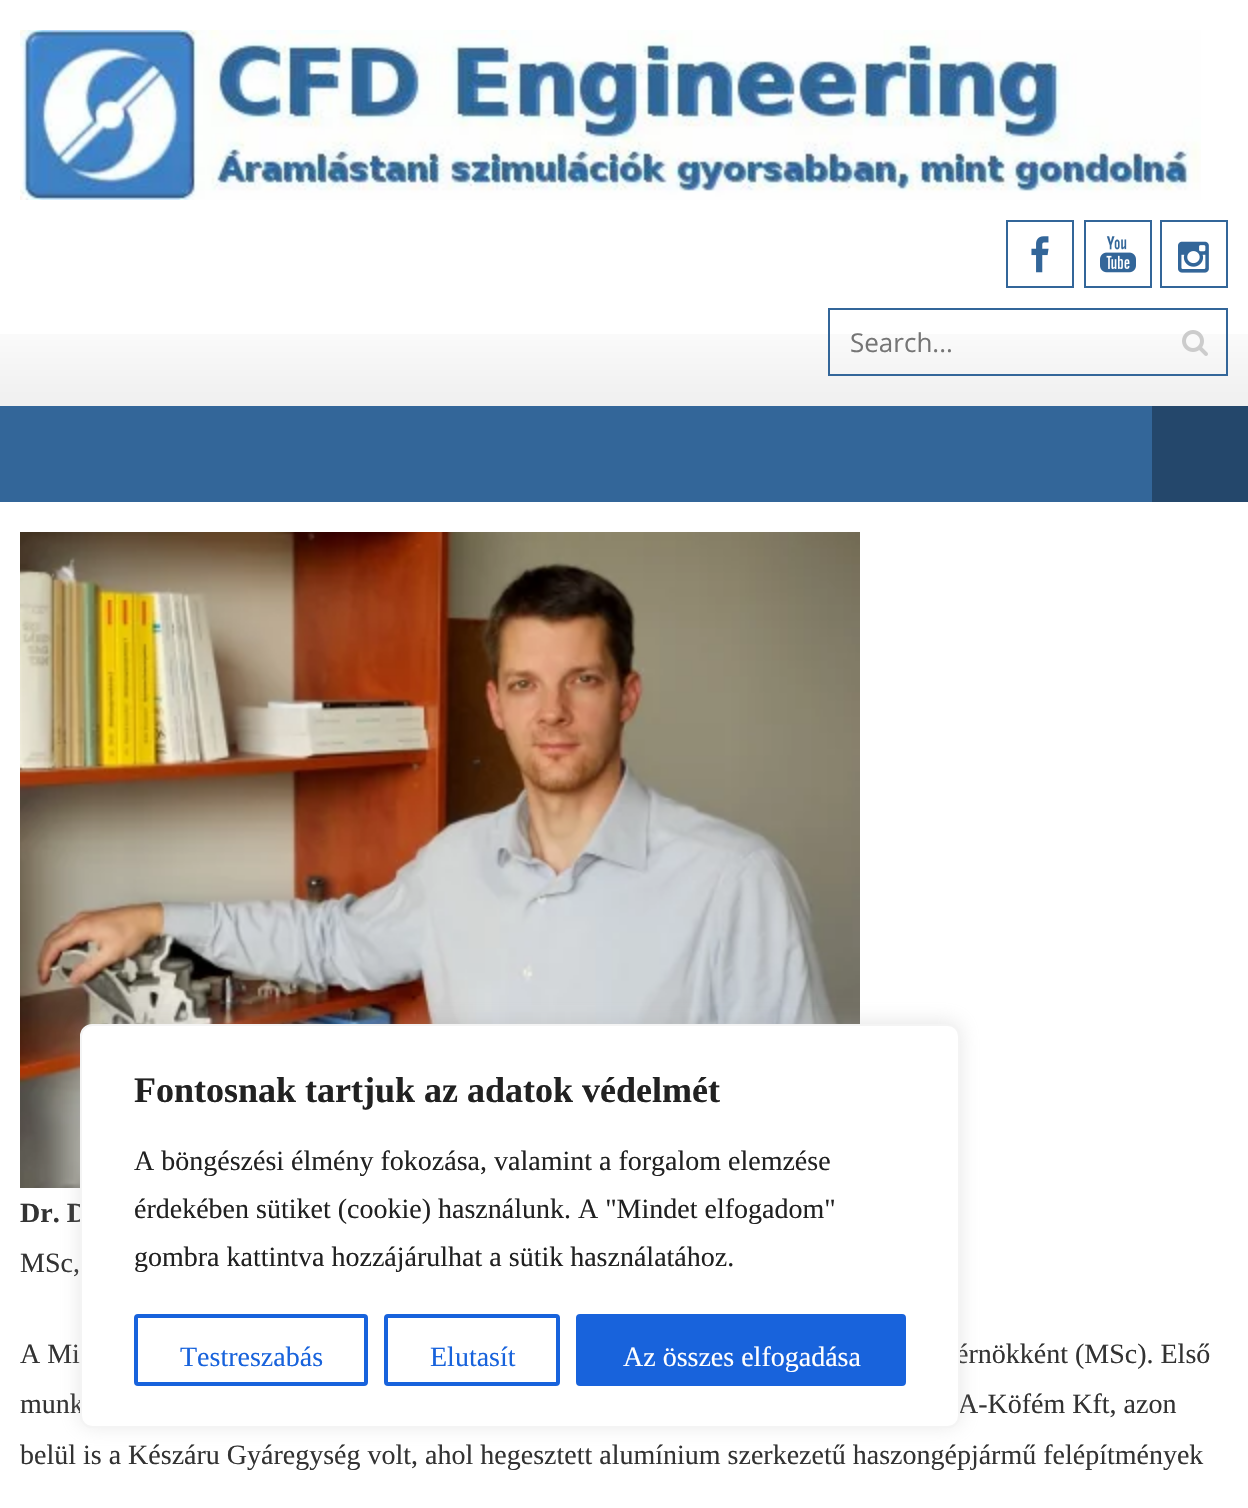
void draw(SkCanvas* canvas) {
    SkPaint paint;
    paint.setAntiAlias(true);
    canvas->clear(0xFFFFFFFF);
    canvas->drawImageRect(SkImages::DeferredFromEncodedData(SkData::MakeFromFileName("img1.png")), SkRect::MakeXYWH(0, 334, 1248, 72), SkSamplingOptions());
    canvas->drawImageRect(SkImages::DeferredFromEncodedData(SkData::MakeFromFileName("img2.png")), SkRect::MakeXYWH(20, 30, 1181, 170), SkSamplingOptions());
    paint.setStyle(SkPaint::kStroke_Style);
    paint.setStrokeWidth(2);
    paint.setColor(0xFF336699);
    canvas->drawRect(SkRect::MakeXYWH(1007, 221, 66, 66), paint);
    canvas->drawImageRect(SkImages::DeferredFromEncodedData(SkData::MakeFromFileName("img3.png")), SkRect::MakeXYWH(1031, 236, 18, 37), SkSamplingOptions());
    canvas->drawRect(SkRect::MakeXYWH(1085, 221, 66, 66), paint);
    canvas->drawImageRect(SkImages::DeferredFromEncodedData(SkData::MakeFromFileName("img4.png")), SkRect::MakeXYWH(1100, 236, 36, 37), SkSamplingOptions());
    canvas->drawRect(SkRect::MakeXYWH(1161, 221, 66, 66), paint);
    canvas->drawImageRect(SkImages::DeferredFromEncodedData(SkData::MakeFromFileName("img5.png")), SkRect::MakeXYWH(1178, 241, 31, 32), SkSamplingOptions());
    canvas->drawRect(SkRect::MakeXYWH(829, 309, 398, 66), paint);
    SkFont font1(fontMgr->matchFamilyStyle("Open Sans", SkFontStyle::Normal()), 26);
    font1.setSubpixel(true);
    paint.setStyle(SkPaint::kFill_Style);
    paint.setColor(0xFF757575);
    canvas->drawString("Search...", 850, 352, font1, paint);
    canvas->drawImageRect(SkImages::DeferredFromEncodedData(SkData::MakeFromFileName("img6.png")), SkRect::MakeXYWH(1182, 330, 26, 26), SkSamplingOptions());
    paint.setColor(0xFF336699);
    canvas->drawRect(SkRect::MakeXYWH(0, 406, 1152, 96), paint);
    paint.setColor(0xFF24476B);
    canvas->drawRect(SkRect::MakeXYWH(1152, 406, 96, 96), paint);
    canvas->drawImageRect(SkImages::DeferredFromEncodedData(SkData::MakeFromFileName("img7.png")), SkRect::MakeXYWH(20, 532, 840, 656), SkSamplingOptions());
    SkFont font2(fontMgr->matchFamilyStyle("Liberation Serif", SkFontStyle::Bold()), 28);
    font2.setSubpixel(true);
    paint.setColor(0xFF333333);
    canvas->drawString("Dr. D", 20, 1222, font2, paint);
    SkFont font3(fontMgr->matchFamilyStyle("Liberation Serif", SkFontStyle::Normal()), 28);
    font3.setSubpixel(true);
    canvas->drawString("MSc,", 20, 1272, font3, paint);
    canvas->drawString("A Mi", 20, 1363, font3, paint);
    canvas->drawString("érnökként (MSc). Első", 956, 1363, font3, paint);
    canvas->drawString("munk", 20, 1413, font3, paint);
    canvas->drawString("A-Köfém Kft, azon", 958, 1413, font3, paint);
    canvas->drawString("belül is a Készáru Gyáregység volt, ahol hegesztett alumínium szerkezetű haszongépjármű felépítmények", 20, 1464, font3, paint);
    paint.setColor(0x4DACABAB);
    paint.setMaskFilter(SkMaskFilter::MakeBlur(kNormal_SkBlurStyle, 10));
    canvas->drawRoundRect(SkRect::MakeXYWH(80, 1022, 880, 404), 12, 12, paint);
    paint.setMaskFilter(nullptr);
    paint.setColor(0xFFFFFFFF);
    canvas->drawRoundRect(SkRect::MakeXYWH(81, 1025, 878, 402), 11, 11, paint);
    paint.setStyle(SkPaint::kStroke_Style);
    paint.setColor(0xFFF4F4F4);
    canvas->drawRoundRect(SkRect::MakeXYWH(81, 1025, 878, 402), 11, 11, paint);
    SkFont font4(fontMgr->matchFamilyStyle("Liberation Serif", SkFontStyle::Bold()), 36);
    font4.setSubpixel(true);
    paint.setStyle(SkPaint::kFill_Style);
    paint.setColor(0xFF212121);
    canvas->drawString("Fontosnak tartjuk az adatok védelmét", 134, 1102, font4, paint);
    canvas->drawString("A böngészési élmény fokozása, valamint a forgalom elemzése", 134, 1170, font3, paint);
    canvas->drawString("érdekében sütiket (cookie) használunk. A \"Mindet elfogadom\"", 134, 1218, font3, paint);
    canvas->drawString("gombra kattintva hozzájárulhat a sütik használatához.", 134, 1266, font3, paint);
    paint.setStyle(SkPaint::kStroke_Style);
    paint.setStrokeWidth(4);
    paint.setColor(0xFF1863DC);
    canvas->drawRoundRect(SkRect::MakeXYWH(136, 1316, 230, 68), 2, 2, paint);
    paint.setStyle(SkPaint::kFill_Style);
    canvas->drawString("Testreszabás", 180, 1366, font3, paint);
    paint.setStyle(SkPaint::kStroke_Style);
    canvas->drawRoundRect(SkRect::MakeXYWH(386, 1316, 172, 68), 2, 2, paint);
    paint.setStyle(SkPaint::kFill_Style);
    canvas->drawString("Elutasít", 430, 1366, font3, paint);
    canvas->drawRoundRect(SkRect::MakeXYWH(578, 1316, 326, 68), 2, 2, paint);
    paint.setStyle(SkPaint::kStroke_Style);
    canvas->drawRoundRect(SkRect::MakeXYWH(578, 1316, 326, 68), 2, 2, paint);
    paint.setStyle(SkPaint::kFill_Style);
    paint.setColor(0xFFFFFFFF);
    canvas->drawString("Az összes elfogadása", 623, 1366, font3, paint);
}
